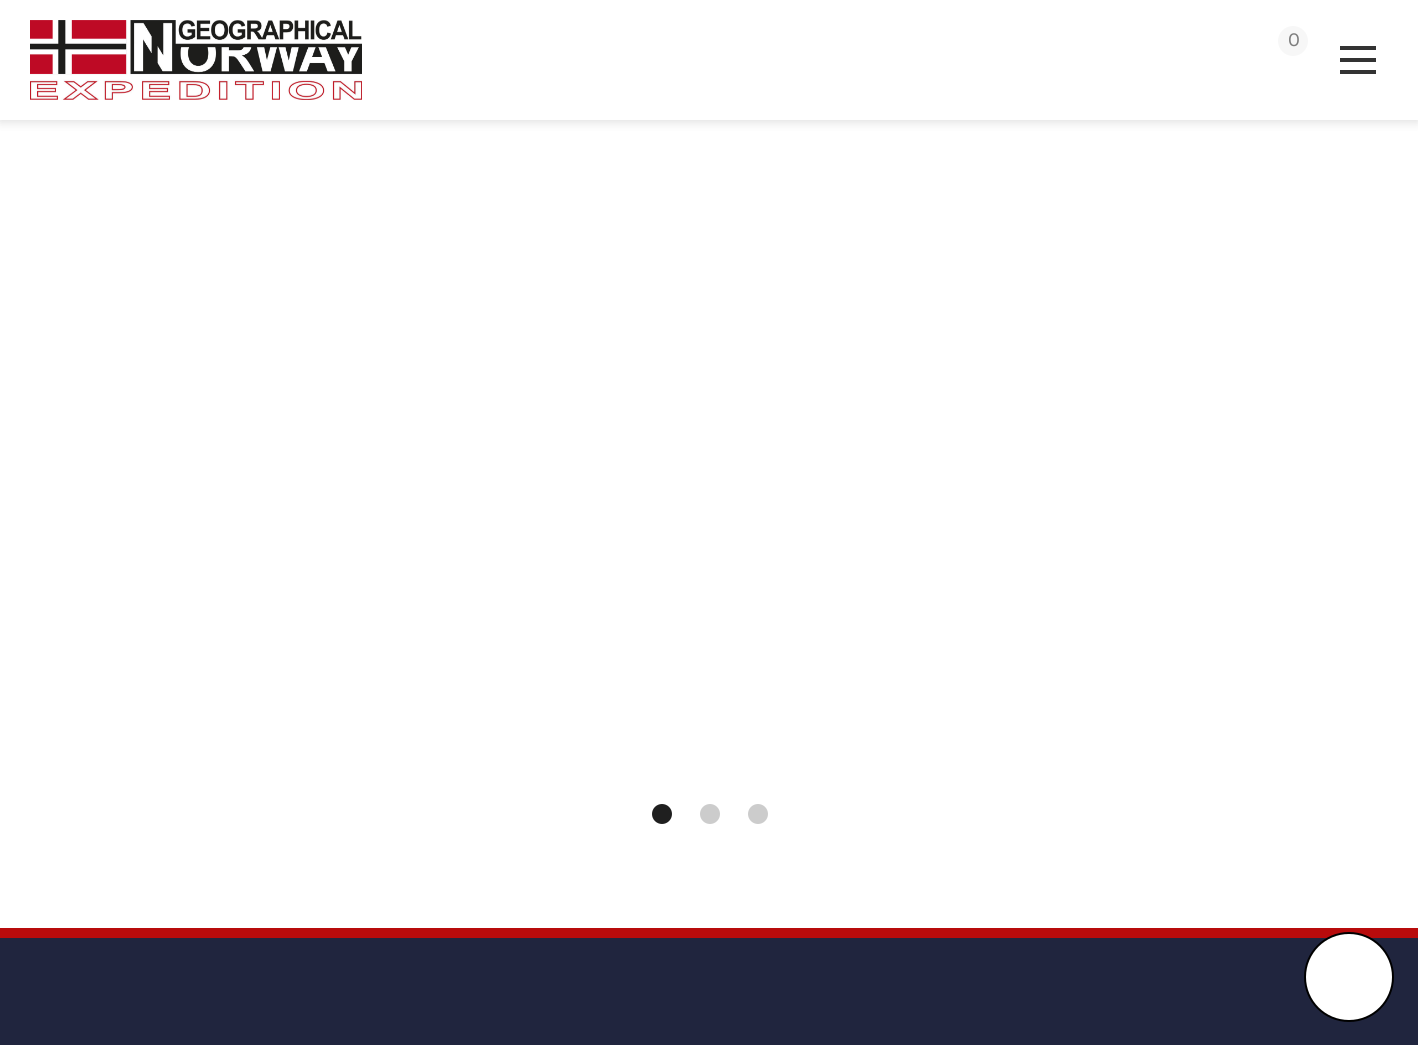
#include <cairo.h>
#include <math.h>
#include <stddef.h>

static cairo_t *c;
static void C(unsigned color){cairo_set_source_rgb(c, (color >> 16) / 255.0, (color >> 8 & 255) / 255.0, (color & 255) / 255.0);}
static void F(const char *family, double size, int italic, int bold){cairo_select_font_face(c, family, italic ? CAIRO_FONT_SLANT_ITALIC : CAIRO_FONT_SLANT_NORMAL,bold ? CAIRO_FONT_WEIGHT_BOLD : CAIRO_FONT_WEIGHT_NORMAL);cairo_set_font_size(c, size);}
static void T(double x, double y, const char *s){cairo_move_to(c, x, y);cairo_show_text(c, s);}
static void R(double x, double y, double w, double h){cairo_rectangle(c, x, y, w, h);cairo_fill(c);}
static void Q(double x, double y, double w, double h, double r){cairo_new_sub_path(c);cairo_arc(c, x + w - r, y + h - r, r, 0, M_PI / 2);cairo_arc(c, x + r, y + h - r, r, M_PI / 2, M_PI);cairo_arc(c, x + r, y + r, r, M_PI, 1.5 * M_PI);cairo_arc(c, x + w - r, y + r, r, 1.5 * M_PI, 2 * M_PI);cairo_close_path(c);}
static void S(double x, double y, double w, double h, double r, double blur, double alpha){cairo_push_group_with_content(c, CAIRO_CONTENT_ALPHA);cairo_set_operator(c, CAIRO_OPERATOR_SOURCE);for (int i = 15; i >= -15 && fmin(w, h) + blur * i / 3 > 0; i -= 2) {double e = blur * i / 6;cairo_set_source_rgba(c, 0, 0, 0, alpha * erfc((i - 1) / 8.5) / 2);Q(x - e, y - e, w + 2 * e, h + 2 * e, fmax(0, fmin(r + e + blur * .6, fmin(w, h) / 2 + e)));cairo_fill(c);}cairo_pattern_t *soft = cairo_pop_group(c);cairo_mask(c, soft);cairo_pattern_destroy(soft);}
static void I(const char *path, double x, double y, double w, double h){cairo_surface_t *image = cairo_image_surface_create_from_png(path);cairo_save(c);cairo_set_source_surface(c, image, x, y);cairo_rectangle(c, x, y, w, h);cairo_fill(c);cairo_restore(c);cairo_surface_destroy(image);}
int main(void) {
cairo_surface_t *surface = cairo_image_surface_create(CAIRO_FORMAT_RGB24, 1418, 1045);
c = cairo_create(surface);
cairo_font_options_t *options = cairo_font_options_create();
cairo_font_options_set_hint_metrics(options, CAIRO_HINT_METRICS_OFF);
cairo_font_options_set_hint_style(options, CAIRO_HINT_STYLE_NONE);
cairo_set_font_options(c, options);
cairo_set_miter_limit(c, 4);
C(0xffffff);
cairo_paint(c);
cairo_save(c);
cairo_rectangle(c,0,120,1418,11);
cairo_clip(c);
C(0xbebebe);
S(0,2,1418,120,0,5,.5);
cairo_restore(c);
I("1.png",30,20,332,80);
C(0xf7f7f7);
cairo_arc(c,1293,41,15,0,2 * M_PI);
cairo_fill(c);
F("Karla",20,0,0);
C(0x7e7e7e);
T(1288,46,"0");
C(0x333333);
R(1340,58,36,4);
R(1340,46,36,4);
R(1340,70,36,4);
C(0x1f1f1f);
cairo_new_path(c);
cairo_arc(c,662,814,10,0,2 * M_PI);
cairo_fill(c);
C(0xcccccc);
cairo_arc(c,710,814,10,0,2 * M_PI);
cairo_fill(c);
cairo_arc(c,758,814,10,0,2 * M_PI);
cairo_fill(c);
C(0x20253e);
R(0,938,1418,107);
C(0xb80b0c);
R(0,928,1418,10);
C(0xffffff);
cairo_arc(c,1349,977,44,0,2 * M_PI);
cairo_fill_preserve(c);
C(0x000000);
cairo_stroke(c);
cairo_surface_write_to_png(surface, "o.png");
cairo_font_options_destroy(options);
cairo_destroy(c);
cairo_surface_destroy(surface);
return 0;
}
